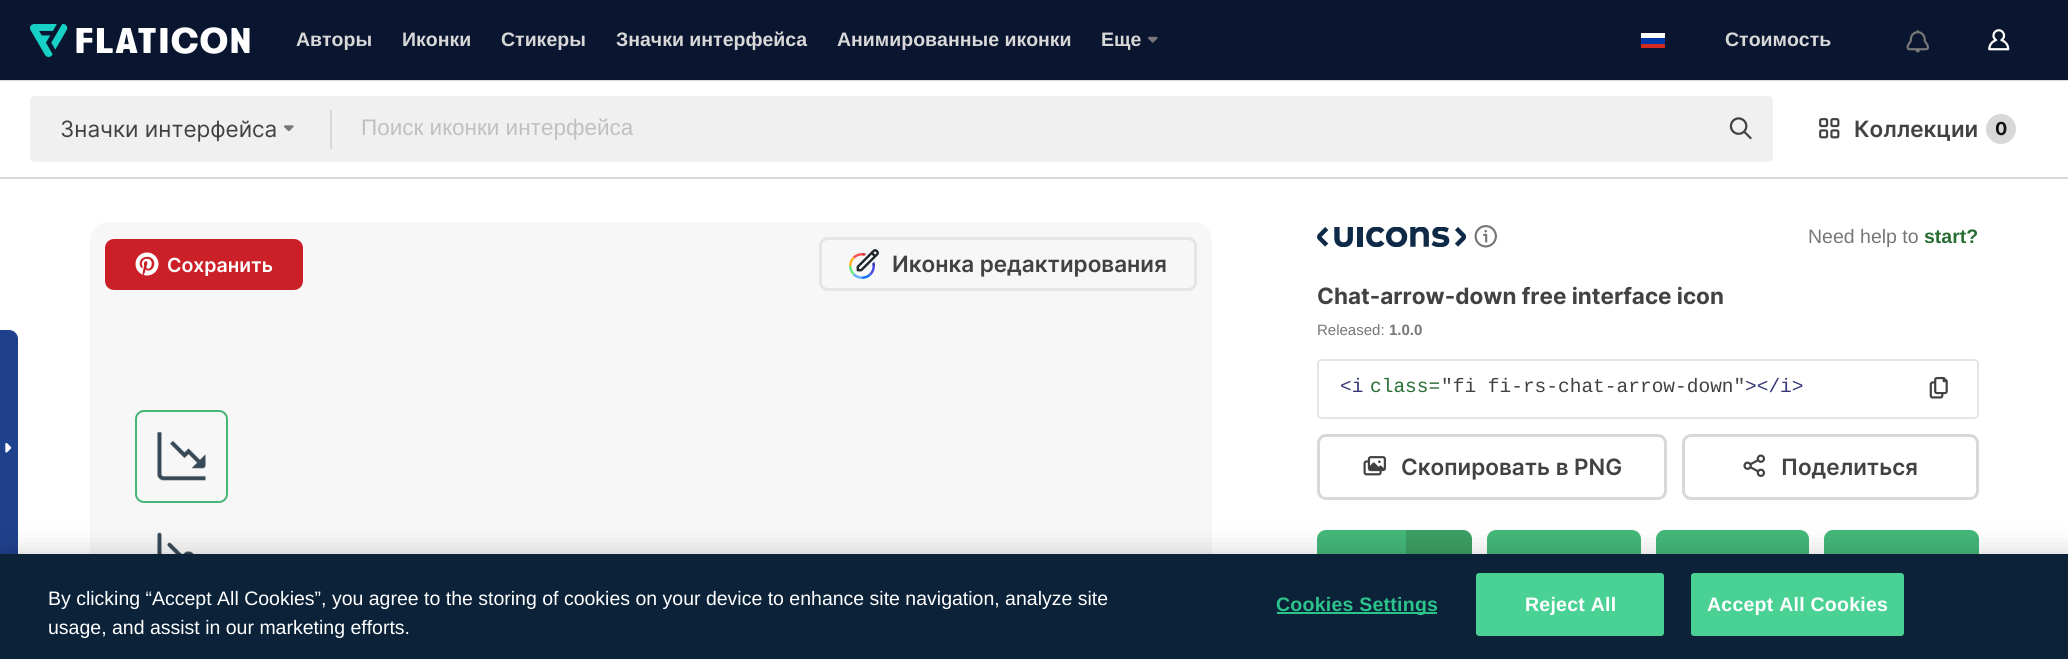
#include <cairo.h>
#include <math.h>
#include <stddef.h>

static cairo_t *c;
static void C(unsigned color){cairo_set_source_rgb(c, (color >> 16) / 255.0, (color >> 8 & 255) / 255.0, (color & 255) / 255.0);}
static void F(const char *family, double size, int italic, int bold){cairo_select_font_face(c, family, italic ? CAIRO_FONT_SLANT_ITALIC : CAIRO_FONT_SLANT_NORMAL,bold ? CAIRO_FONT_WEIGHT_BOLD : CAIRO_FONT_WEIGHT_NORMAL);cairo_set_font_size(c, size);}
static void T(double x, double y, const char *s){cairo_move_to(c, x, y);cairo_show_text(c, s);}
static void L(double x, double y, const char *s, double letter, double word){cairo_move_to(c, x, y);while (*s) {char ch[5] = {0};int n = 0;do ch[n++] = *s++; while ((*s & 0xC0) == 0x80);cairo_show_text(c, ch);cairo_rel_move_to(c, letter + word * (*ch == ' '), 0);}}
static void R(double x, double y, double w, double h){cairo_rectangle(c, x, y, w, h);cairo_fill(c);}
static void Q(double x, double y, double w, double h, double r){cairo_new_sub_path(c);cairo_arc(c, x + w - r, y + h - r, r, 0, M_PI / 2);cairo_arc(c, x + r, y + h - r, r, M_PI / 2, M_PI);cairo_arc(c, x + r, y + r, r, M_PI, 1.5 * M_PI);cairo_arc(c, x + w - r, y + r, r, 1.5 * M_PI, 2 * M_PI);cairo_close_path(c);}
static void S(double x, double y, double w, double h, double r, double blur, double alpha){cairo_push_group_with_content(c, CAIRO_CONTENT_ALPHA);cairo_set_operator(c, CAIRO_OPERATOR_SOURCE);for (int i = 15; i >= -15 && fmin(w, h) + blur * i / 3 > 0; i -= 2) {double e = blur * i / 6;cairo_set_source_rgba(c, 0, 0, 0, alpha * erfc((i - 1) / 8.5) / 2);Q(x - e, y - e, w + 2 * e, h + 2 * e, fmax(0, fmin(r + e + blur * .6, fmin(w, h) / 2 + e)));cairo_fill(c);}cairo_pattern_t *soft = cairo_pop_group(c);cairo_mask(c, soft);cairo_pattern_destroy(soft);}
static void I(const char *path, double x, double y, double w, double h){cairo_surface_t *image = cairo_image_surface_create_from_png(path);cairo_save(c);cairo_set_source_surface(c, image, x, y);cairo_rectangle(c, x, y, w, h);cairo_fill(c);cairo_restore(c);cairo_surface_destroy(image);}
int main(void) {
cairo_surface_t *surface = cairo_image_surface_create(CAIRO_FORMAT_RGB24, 2068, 659);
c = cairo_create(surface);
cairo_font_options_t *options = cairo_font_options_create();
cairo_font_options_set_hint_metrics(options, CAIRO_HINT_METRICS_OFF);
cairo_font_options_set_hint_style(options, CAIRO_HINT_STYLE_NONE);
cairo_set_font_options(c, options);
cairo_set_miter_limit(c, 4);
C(0xffffff);
cairo_paint(c);
C(0x1f408c);
cairo_new_path(c);
cairo_move_to(c,0,330);
cairo_line_to(c,9,330);
cairo_curve_to(c,14,330,18,334,18,339);
cairo_line_to(c,18,558);
cairo_curve_to(c,18,563,14,567,9,567);
cairo_line_to(c,0,567);
cairo_close_path(c);
cairo_fill(c);
I("1.png",5,442,7,11);
C(0x0a152f);
R(0,0,2068,80);
I("2.png",30,24,220,33);
F("Liberation Sans",19.5,0,1);
C(0xd8d8d8);
T(296,46,"Авторы");
T(402,46,"Иконки");
T(501,46,"Стикеры");
T(616,46,"Значки интерфейса");
T(837,46,"Анимированные иконки");
T(1101,46,"Еще");
I("3.png",1148,36,10,7);
C(0xffffff);
R(1641,33,24,5);
C(0xd52b1e);
R(1641,44,24,4);
C(0x0039a6);
R(1641,38,24,6);
C(0xd8d8d8);
T(1725,46,"Стоимость");
I("4.png",1906,30,23,23);
I("5.png",1988,29,22,22);
cairo_rectangle(c,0,81,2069,97);
cairo_stroke(c);
C(0xffffff);
R(0,81,2068,96);
C(0xf0f0f0);
Q(30,96,1743,66,5);
cairo_fill(c);
F("Inter",22.5,0,0);
C(0x424242);
T(60,137,"Значки интерфейса");
I("6.png",284,125,10,7);
C(0xd8d8d8);
R(330,110,2,39);
F("Liberation Sans",22.5,0,0);
C(0xc0c0c0);
T(361,135,"Поиск иконки интерфейса");
I("7.png",1729,117,23,23);
I("8.png",1819,118,21,21);
F("Inter SemiBold",22.5,0,0);
C(0x424242);
T(1854,137,"Коллекции");
C(0xd8d8d8);
cairo_new_path(c);
cairo_arc(c,2001,129,15,0,2 * M_PI);
cairo_fill(c);
F("Inter",18,0,1);
C(0x121212);
T(1995,135,"0");
C(0xf7f7f7);
Q(90,222,1122,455,18);
cairo_fill(c);
C(0xcb2027);
Q(105,239,198,51,9);
cairo_fill(c);
I("9.png",135,252,24,24);
F("Inter SemiBold",19.5,0,0);
C(0xffffff);
T(167,272,"Сохранить");
Q(820.5,238.5,375,51,7.5);
C(0xe5e5e5);
cairo_set_line_width(c,3);
cairo_stroke(c);
I("10.png",849,249,30,30);
F("Inter SemiBold",22.5,0,0);
C(0x424242);
T(892,272,"Иконка редактирования");
Q(136,411,91,91,8);
C(0x44b678);
cairo_set_line_width(c,2);
cairo_stroke(c);
I("11.png",157,432,49,49);
I("12.png",157,532,37,22);
I("13.png",1317,227,149,20);
I("14.png",1474,225,23,23);
F("Liberation Sans",19.5,0,0);
C(0x777777);
T(1808,243,"Need help to");
F("Liberation Sans",19.5,0,1);
C(0x286d34);
T(1924,243,"start?");
F("Inter",22.5,0,1);
C(0x424242);
T(1317,304,"Chat-arrow-down free interface icon");
F("Liberation Sans",15,0,0);
C(0x777777);
T(1317,335,"Released:");
F("Liberation Sans",15,0,1);
T(1389,335,"1.0.0");
I("15.png",1929,376,19,23);
Q(1318,360,660,58,4);
C(0xe5e5e5);
cairo_stroke(c);
F("Liberation Mono",19.5,0,0);
C(0x353777);
T(1340,392,"<i");
C(0x286d34);
T(1370,392,"class=");
C(0x424242);
T(1441,392,"\"fi fi-rs-chat-arrow-down\"");
C(0x353777);
T(1745,392,"></i>");
Q(1318.5,435.5,347,63,7.5);
C(0xd8d8d8);
cairo_set_line_width(c,3);
cairo_stroke(c);
I("16.png",1363,456,23,20);
F("Inter SemiBold",22.5,0,0);
C(0x424242);
T(1401,475,"Скопировать в PNG");
Q(1683.5,435.5,294,63,7.5);
C(0xd8d8d8);
cairo_stroke(c);
I("17.png",1743,454,23,23);
C(0x424242);
T(1781,475,"Поделиться");
C(0x44b678);
cairo_new_path(c);
cairo_move_to(c,1326,530);
cairo_line_to(c,1406,530);
cairo_line_to(c,1406,596);
cairo_line_to(c,1326,596);
cairo_curve_to(c,1321,596,1317,592,1317,587);
cairo_line_to(c,1317,539);
cairo_curve_to(c,1317,534,1321,530,1326,530);
cairo_close_path(c);
cairo_fill(c);
C(0x3b9e62);
cairo_new_path(c);
cairo_move_to(c,1406,530);
cairo_line_to(c,1463,530);
cairo_curve_to(c,1468,530,1472,534,1472,539);
cairo_line_to(c,1472,587);
cairo_curve_to(c,1472,592,1468,596,1463,596);
cairo_line_to(c,1406,596);
cairo_close_path(c);
cairo_fill(c);
C(0x44b678);
Q(1487,530,154,66,9);
cairo_fill(c);
Q(1656,530,153,66,9);
cairo_fill(c);
Q(1824,530,155,66,9);
cairo_fill(c);
C(0x000000);
S(0,554,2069,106,0,13.5,.2);
C(0x0b2239);
R(0,554,2068,105);
F("Liberation Sans",19.5,0,0);
C(0xffffff);
T(48,605,"By clicking “Accept All Cookies”, you agree to the storing of cookies on your device to enhance site navigation, analyze site");
T(48,634,"usage, and assist in our marketing efforts.");
C(0x2bc48a);
R(1277,612,160,2);
F("Liberation Sans",19.5,0,1);
L(1276,611,"Cookies Settings",.25,0);
C(0x4ad295);
Q(1477,574,186,61,2);
cairo_fill_preserve(c);
cairo_set_line_width(c,2);
cairo_stroke(c);
C(0xffffff);
L(1525,611,"Reject All",.25,0);
C(0x4ad295);
Q(1692,574,211,61,2);
cairo_fill_preserve(c);
cairo_stroke(c);
C(0xffffff);
L(1707,611,"Accept All Cookies",.25,0);
cairo_surface_write_to_png(surface, "o.png");
cairo_font_options_destroy(options);
cairo_destroy(c);
cairo_surface_destroy(surface);
return 0;
}
